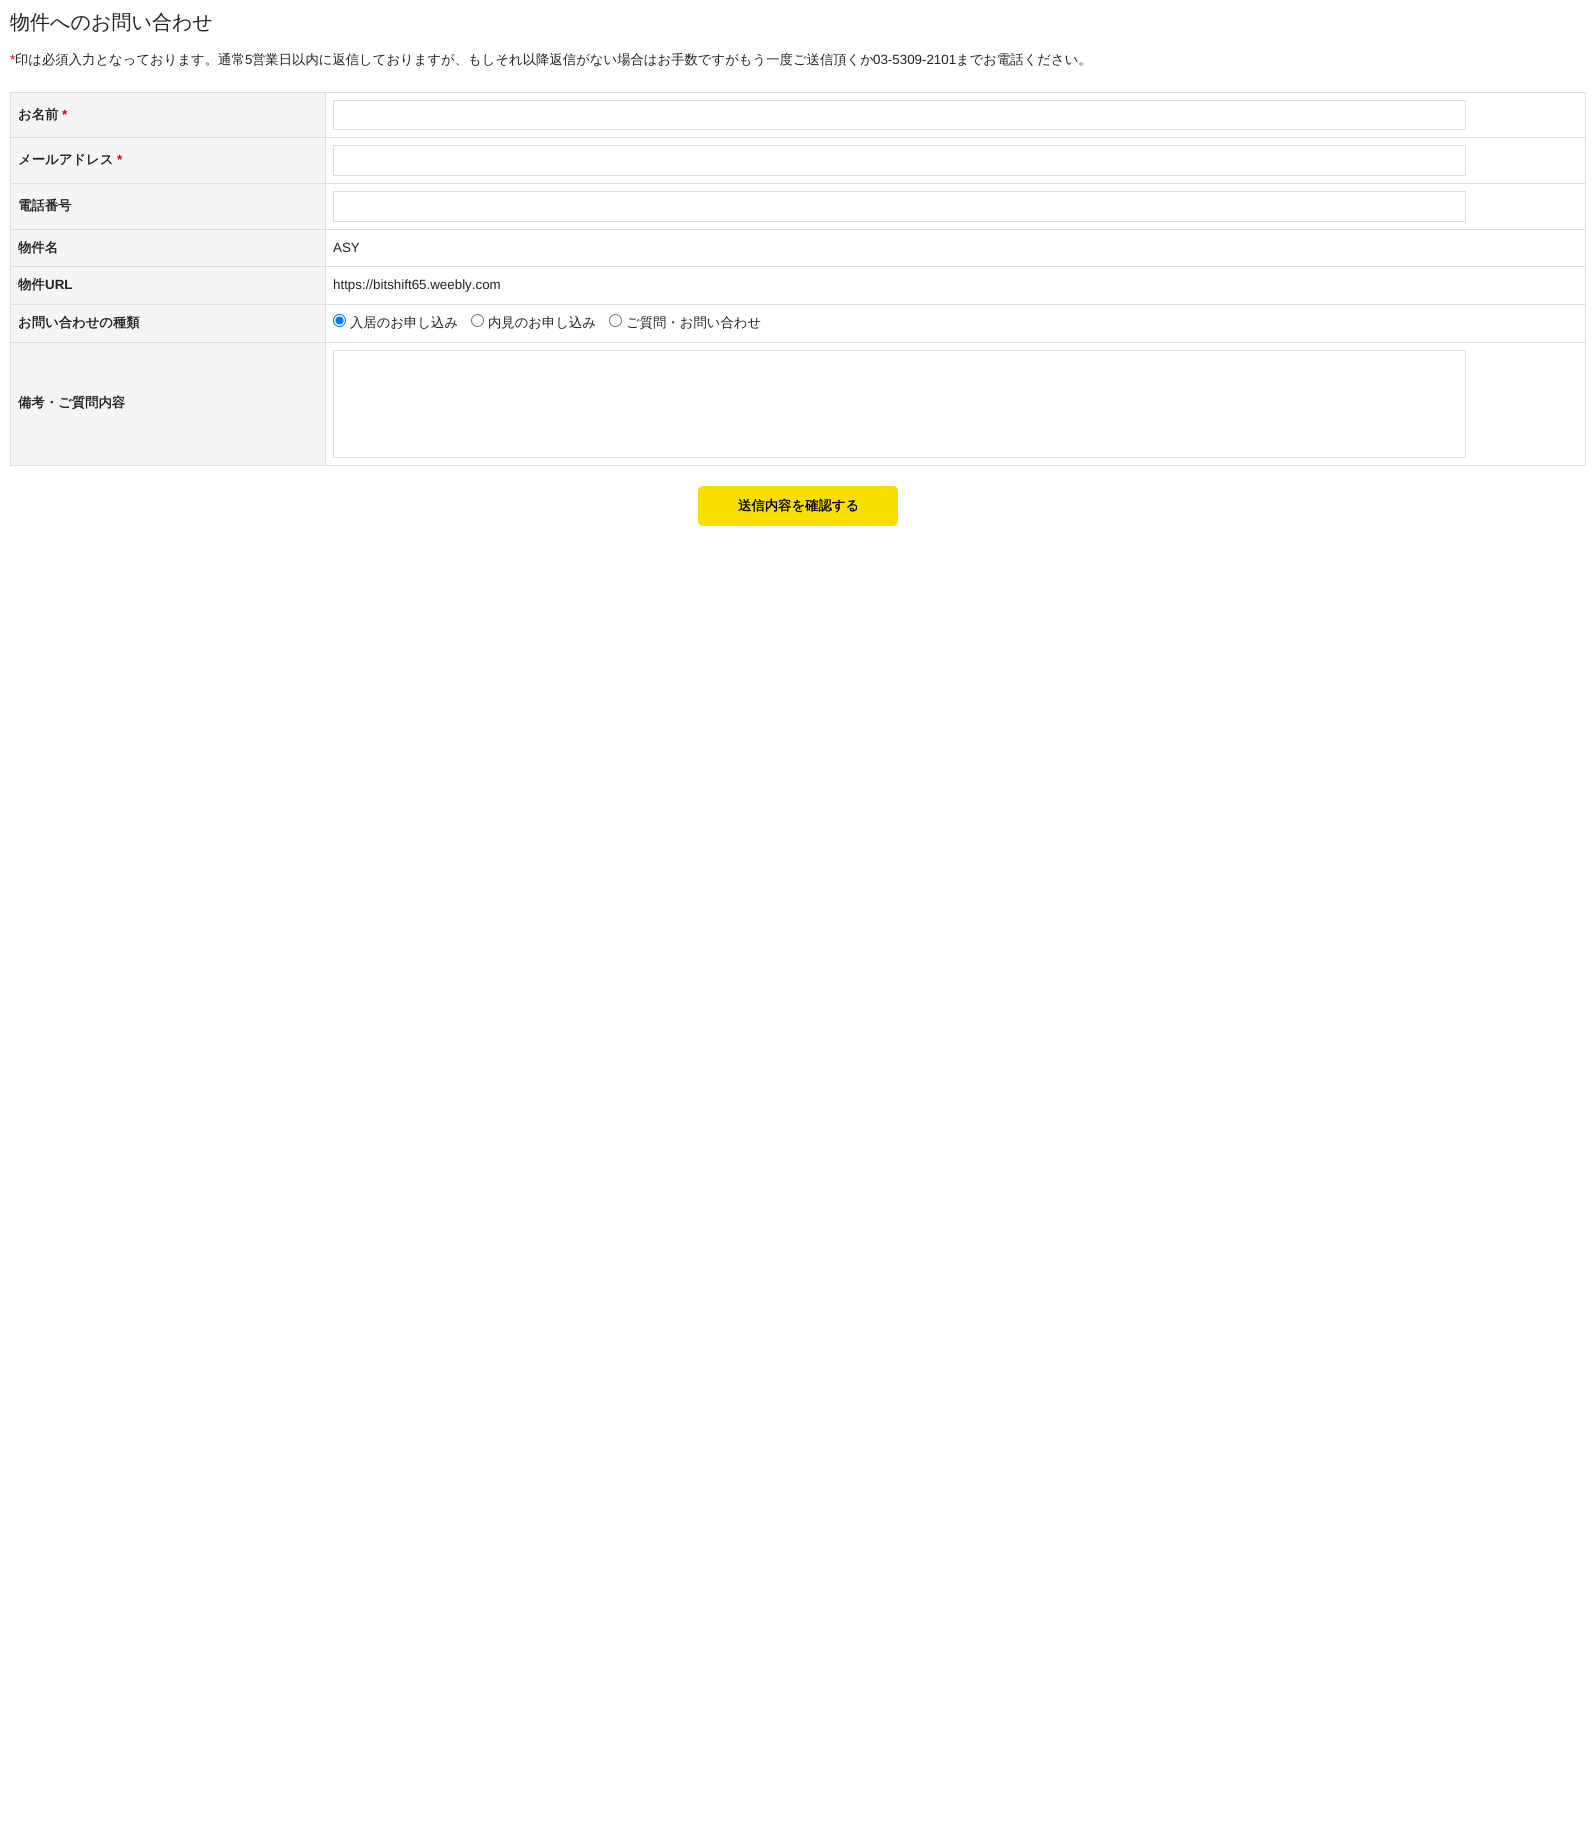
#include <cairo.h>
#include <math.h>
#include <stddef.h>

static cairo_t *c;
static void C(unsigned color){cairo_set_source_rgb(c, (color >> 16) / 255.0, (color >> 8 & 255) / 255.0, (color & 255) / 255.0);}
static void F(const char *family, double size, int italic, int bold){cairo_select_font_face(c, family, italic ? CAIRO_FONT_SLANT_ITALIC : CAIRO_FONT_SLANT_NORMAL,bold ? CAIRO_FONT_WEIGHT_BOLD : CAIRO_FONT_WEIGHT_NORMAL);cairo_set_font_size(c, size);}
static void T(double x, double y, const char *s){cairo_move_to(c, x, y);cairo_show_text(c, s);}
static void R(double x, double y, double w, double h){cairo_rectangle(c, x, y, w, h);cairo_fill(c);}
static void Q(double x, double y, double w, double h, double r){cairo_new_sub_path(c);cairo_arc(c, x + w - r, y + h - r, r, 0, M_PI / 2);cairo_arc(c, x + r, y + h - r, r, M_PI / 2, M_PI);cairo_arc(c, x + r, y + r, r, M_PI, 1.5 * M_PI);cairo_arc(c, x + w - r, y + r, r, 1.5 * M_PI, 2 * M_PI);cairo_close_path(c);}
int main(void) {
cairo_surface_t *surface = cairo_image_surface_create(CAIRO_FORMAT_RGB24, 1596, 1839);
c = cairo_create(surface);
cairo_font_options_t *options = cairo_font_options_create();
cairo_font_options_set_hint_metrics(options, CAIRO_HINT_METRICS_OFF);
cairo_font_options_set_hint_style(options, CAIRO_HINT_STYLE_NONE);
cairo_set_font_options(c, options);
cairo_set_miter_limit(c, 4);
C(0xffffff);
cairo_paint(c);
F("WenQuanYi Zen Hei Medium",20,0,0);
C(0x222222);
T(10,29,"物件へのお問い合わせ");
F("Liberation Sans",13.35,0,0);
C(0xdd0000);
T(10,64,"*");
F("WenQuanYi Zen Hei Medium",13.35,0,0);
C(0x222222);
T(15,64,"印は必須入力となっております。通常");
F("Liberation Sans",13.35,0,0);
T(245,64,"5");
F("WenQuanYi Zen Hei Medium",13.35,0,0);
T(252,64,"営業日以内に返信しておりますが、もしそれ以降返信がない場合はお手数ですがもう一度ご送信頂くか");
F("Liberation Sans",13.35,0,0);
T(873,64,"03-5309-2101");
F("WenQuanYi Zen Hei Medium",13.35,0,0);
T(956,64,"までお電話ください。");
C(0xf5f5f5);
R(11,93,314,44);
C(0xdddddd);
R(325,92,1261,1);
R(325,137,1261,1);
R(325,183,1261,1);
R(325,229,1261,1);
R(325,266,1261,1);
R(325,304,1261,1);
R(325,342,1261,1);
R(1585,342,1,124);
R(325,465,1261,1);
R(325,342,1,124);
R(10,342,316,1);
R(325,304,1,39);
R(10,304,316,1);
R(325,266,1,39);
R(10,266,316,1);
R(325,229,1,38);
R(10,229,316,1);
R(325,183,1,47);
R(10,183,316,1);
R(325,137,1,47);
R(10,137,316,1);
R(325,92,1,46);
R(10,92,316,1);
R(10,465,316,1);
R(10,342,1,124);
R(10,304,1,39);
R(10,266,1,39);
R(10,229,1,38);
R(10,183,1,47);
R(10,137,1,47);
R(10,92,1,46);
F("WenQuanYi Zen Hei",13.35,0,1);
C(0x222222);
T(18,119,"お名前");
F("Liberation Sans",13.35,0,1);
C(0xdd0000);
T(62,119,"*");
C(0xdddddd);
R(1585,304,1,39);
R(1585,266,1,39);
R(1585,229,1,38);
R(1585,183,1,47);
R(1585,137,1,47);
R(1585,92,1,46);
cairo_rectangle(c,333.5,100.5,1132,29);
cairo_set_line_width(c,1);
cairo_stroke(c);
C(0xf5f5f5);
R(11,138,314,45);
F("WenQuanYi Zen Hei",13.35,0,1);
C(0x222222);
T(18,164,"メールアドレス");
F("Liberation Sans",13.35,0,1);
C(0xdd0000);
T(117,164,"*");
cairo_rectangle(c,333.5,145.5,1132,30);
C(0xdddddd);
cairo_stroke(c);
C(0xf5f5f5);
R(11,184,314,45);
F("WenQuanYi Zen Hei",13.35,0,1);
C(0x222222);
T(18,210,"電話番号");
cairo_rectangle(c,333.5,191.5,1132,30);
C(0xdddddd);
cairo_stroke(c);
C(0xf5f5f5);
R(11,230,314,36);
C(0x222222);
T(18,252,"物件名");
F("Liberation Sans",13.35,0,0);
T(333,252,"ASY");
C(0xf5f5f5);
R(11,267,314,37);
F("WenQuanYi Zen Hei",13.35,0,1);
C(0x222222);
T(18,289,"物件");
F("Liberation Sans",13.35,0,1);
T(45,289,"URL");
F("Liberation Sans",13.35,0,0);
T(333,289,"https://bitshift65.weebly.com");
C(0xf5f5f5);
R(11,305,314,37);
F("WenQuanYi Zen Hei",13.35,0,1);
C(0x222222);
T(18,327,"お問い合わせの種類");
cairo_new_path(c);
cairo_arc(c,339.5,320.5,6,0,2 * M_PI);
C(0x0075ff);
cairo_stroke(c);
cairo_arc(c,339.5,320.5,4,0,2 * M_PI);
cairo_fill(c);
F("WenQuanYi Zen Hei Medium",13.35,0,0);
C(0x222222);
T(350,327,"入居のお申し込み");
cairo_new_path(c);
cairo_arc(c,477.5,320.5,6,0,2 * M_PI);
C(0x767676);
cairo_stroke(c);
C(0x222222);
T(488,327,"内見のお申し込み");
cairo_new_path(c);
cairo_arc(c,615.5,320.5,6,0,2 * M_PI);
C(0x767676);
cairo_stroke(c);
C(0x222222);
T(626,327,"ご質問・お問い合わせ");
C(0xf5f5f5);
R(11,343,314,122);
F("WenQuanYi Zen Hei",13.35,0,1);
C(0x222222);
T(18,407,"備考・ご質問内容");
cairo_rectangle(c,333.5,350.5,1132,107);
C(0xdddddd);
cairo_stroke(c);
C(0xf9df00);
Q(698,486,200,40,5);
cairo_fill(c);
C(0x000000);
T(738,510,"送信内容を確認する");
cairo_surface_write_to_png(surface, "o.png");
cairo_font_options_destroy(options);
cairo_destroy(c);
cairo_surface_destroy(surface);
return 0;
}
